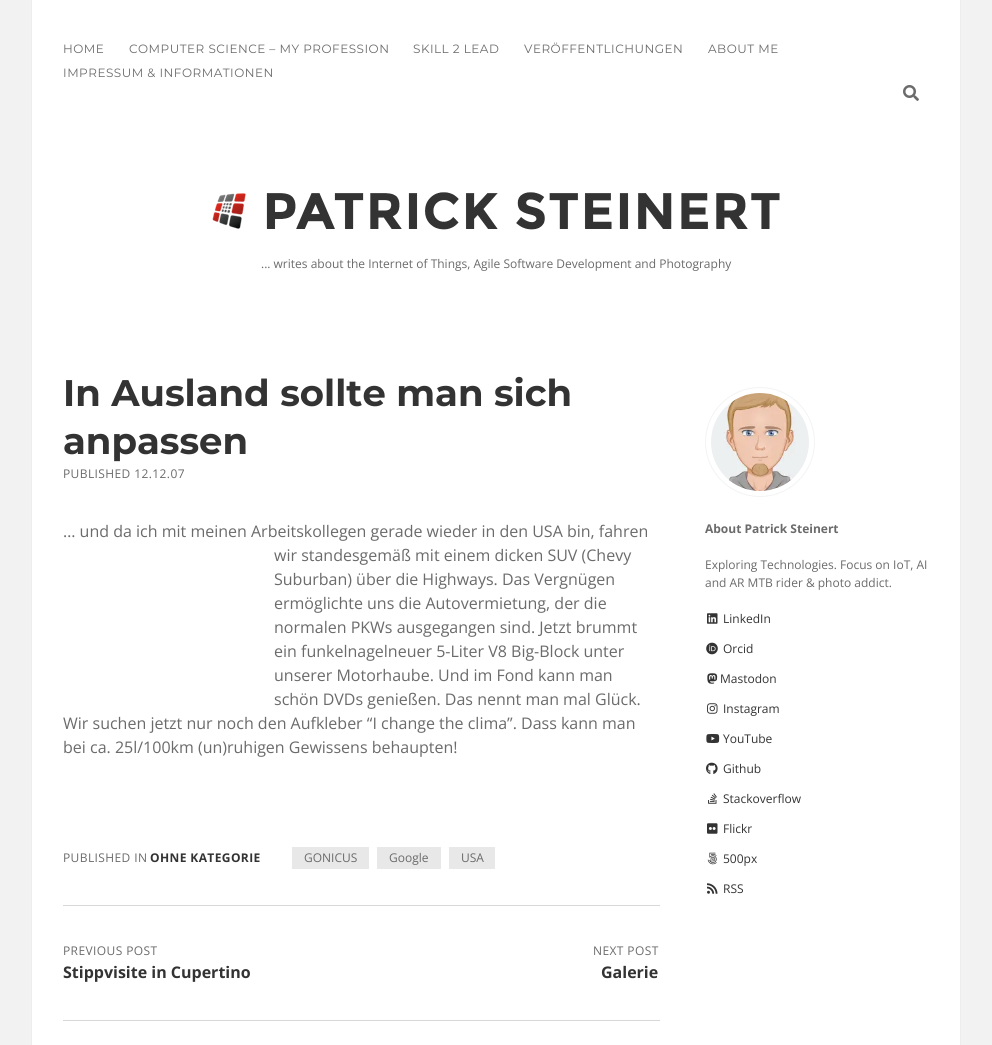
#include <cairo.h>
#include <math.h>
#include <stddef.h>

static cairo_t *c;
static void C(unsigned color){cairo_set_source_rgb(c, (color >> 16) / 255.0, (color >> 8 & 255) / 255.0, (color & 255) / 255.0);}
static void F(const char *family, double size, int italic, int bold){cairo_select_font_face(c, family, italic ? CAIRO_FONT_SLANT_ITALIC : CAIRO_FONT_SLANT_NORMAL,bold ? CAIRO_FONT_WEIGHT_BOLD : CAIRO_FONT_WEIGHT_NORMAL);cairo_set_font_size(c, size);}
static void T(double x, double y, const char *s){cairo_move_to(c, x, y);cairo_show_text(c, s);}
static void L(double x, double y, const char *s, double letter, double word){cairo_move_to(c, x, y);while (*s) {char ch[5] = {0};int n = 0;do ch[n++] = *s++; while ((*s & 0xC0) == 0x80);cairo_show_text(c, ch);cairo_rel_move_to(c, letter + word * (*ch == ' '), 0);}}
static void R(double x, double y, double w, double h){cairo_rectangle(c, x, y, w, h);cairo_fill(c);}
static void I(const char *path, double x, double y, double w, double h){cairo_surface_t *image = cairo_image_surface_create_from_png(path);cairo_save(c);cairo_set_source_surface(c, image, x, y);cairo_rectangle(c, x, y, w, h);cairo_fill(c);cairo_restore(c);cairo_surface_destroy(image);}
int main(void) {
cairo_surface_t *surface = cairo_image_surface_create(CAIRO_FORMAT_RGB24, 992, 1045);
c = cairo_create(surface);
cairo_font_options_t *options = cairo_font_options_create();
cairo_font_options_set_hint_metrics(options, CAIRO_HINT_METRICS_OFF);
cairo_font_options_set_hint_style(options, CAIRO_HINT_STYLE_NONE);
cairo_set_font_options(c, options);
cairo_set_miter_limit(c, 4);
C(0xf2f2f2);
cairo_paint(c);
C(0xffffff);
R(32,0,928,1045);
C(0xededed);
R(960,0,1,1045);
R(31,0,1,1045);
F("Montserrat",12,0,0);
C(0x6b6b6b);
L(63,53,"HOME",.5,0);
L(129,53,"COMPUTER SCIENCE – MY PROFESSION",.5,0);
L(413,53,"SKILL 2 LEAD",.5,0);
L(524,53,"VERÖFFENTLICHUNGEN",.5,0);
L(708,53,"ABOUT ME",.5,0);
L(63,77,"IMPRESSUM & INFORMATIONEN",.5,0);
I("1.png",903,85,16,16);
I("2.png",212,192,568,38);
F("Open Sans",12,0,0);
T(261,268,"... writes about the Internet of Things, Agile Software Development and Photography");
F("Montserrat",37,0,1);
C(0x333333);
T(63,406,"In Ausland sollte man sich");
T(63,454,"anpassen");
F("Open Sans",12,0,0);
C(0x6b6b6b);
L(63,478,"PUBLISHED 12.12.07",.4,0);
F("Open Sans",16,0,0);
T(63,537,"… und da ich mit meinen Arbeitskollegen gerade wieder in den USA bin, fahren");
T(274,561,"wir standesgemäß mit einem dicken SUV (Chevy");
T(274,585,"Suburban) über die Highways. Das Vergnügen");
T(274,609,"ermöglichte uns die Autovermietung, der die");
T(274,633,"normalen PKWs ausgegangen sind. Jetzt brummt");
T(274,657,"ein funkelnagelneuer 5-Liter V8 Big-Block unter");
T(274,681,"unserer Motorhaube. Und im Fond kann man");
T(274,705,"schön DVDs genießen. Das nennt man mal Glück.");
T(63,729,"Wir suchen jetzt nur noch den Aufkleber “I change the clima”. Dass kann man");
T(63,753,"bei ca. 25l/100km (un)ruhigen Gewissens behaupten!");
F("Open Sans",12,0,0);
L(63,862,"PUBLISHED IN",.4,0);
F("Open Sans",12,0,1);
C(0x333333);
L(150,862,"OHNE KATEGORIE",.4,0);
C(0xe8e8e8);
R(292,847,77,22);
F("Open Sans",12,0,0);
C(0x6b6b6b);
T(304,862,"GONICUS");
C(0xe8e8e8);
R(377,847,64,22);
C(0x6b6b6b);
T(389,862,"Google");
C(0xe8e8e8);
R(449,847,46,22);
C(0x6b6b6b);
T(461,862,"USA");
C(0xd8d8d8);
R(63,905,597,1);
R(63,1020,597,1);
C(0x6b6b6b);
L(63,955,"PREVIOUS POST",.4,0);
F("Open Sans",16,0,1);
C(0x333333);
T(63,978,"Stippvisite in Cupertino");
F("Open Sans",12,0,0);
C(0x6b6b6b);
L(593,955,"NEXT POST",.4,0);
F("Open Sans",16,0,1);
C(0x333333);
T(601,978,"Galerie");
cairo_new_path(c);
cairo_arc(c,760,442,54.5,0,2 * M_PI);
C(0xf2f3f3);
cairo_set_line_width(c,1);
cairo_stroke(c);
I("3.png",711,393,98,98);
F("Open Sans",12,0,1);
C(0x6b6b6b);
T(705,533,"About Patrick Steinert");
F("Open Sans",12,0,0);
T(705,569,"Exploring Technologies. Focus on IoT, AI");
T(705,587,"and AR MTB rider & photo addict.");
I("4.png",707,613,11,11);
C(0x333333);
T(723,623,"LinkedIn");
I("5.png",706,642,12,13);
T(723,653,"Orcid");
I("6.png",707,673,11,11);
T(720,683,"Mastodon");
I("7.png",707,703,11,11);
T(723,713,"Instagram");
I("8.png",706,734,14,9);
T(723,743,"YouTube");
I("9.png",706,762,12,12);
T(723,773,"Github");
I("10.png",708,793,9,11);
T(723,803,"Stackoverflow");
I("11.png",707,823,11,11);
T(723,833,"Flickr");
I("12.png",707,852,10,13);
T(723,863,"500px");
I("13.png",707,883,11,11);
T(723,893,"RSS");
cairo_surface_write_to_png(surface, "o.png");
cairo_font_options_destroy(options);
cairo_destroy(c);
cairo_surface_destroy(surface);
return 0;
}
